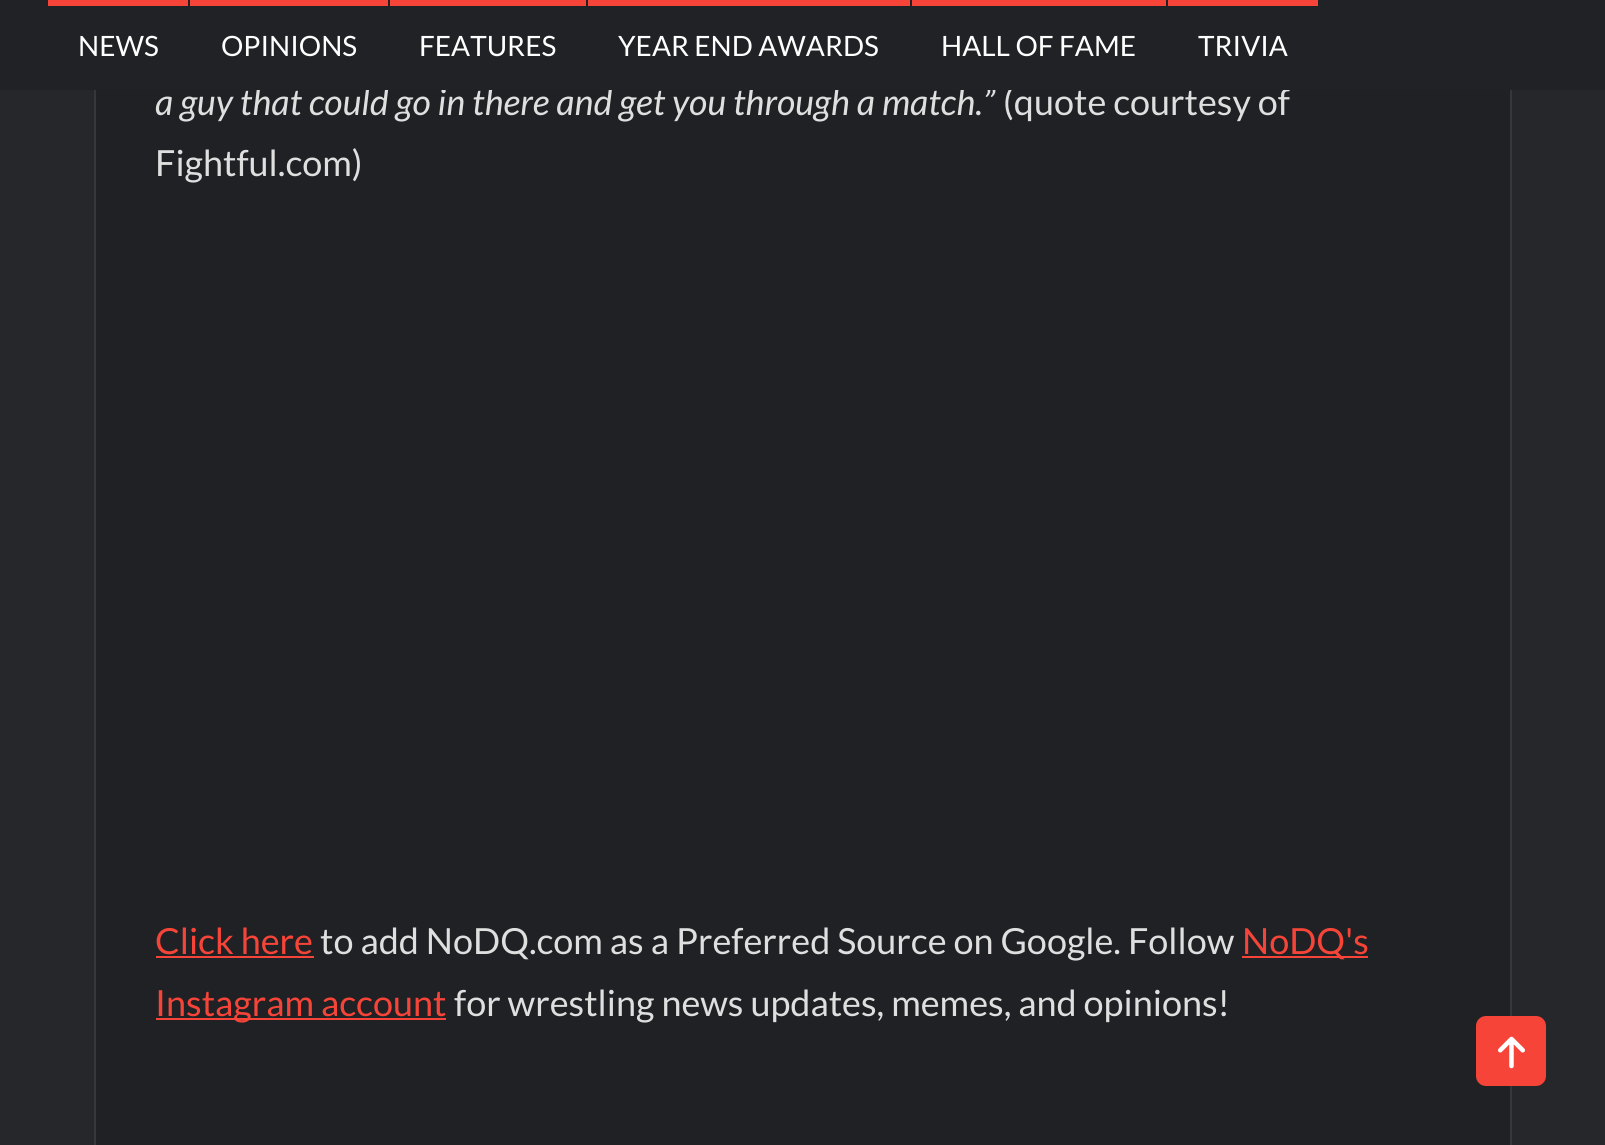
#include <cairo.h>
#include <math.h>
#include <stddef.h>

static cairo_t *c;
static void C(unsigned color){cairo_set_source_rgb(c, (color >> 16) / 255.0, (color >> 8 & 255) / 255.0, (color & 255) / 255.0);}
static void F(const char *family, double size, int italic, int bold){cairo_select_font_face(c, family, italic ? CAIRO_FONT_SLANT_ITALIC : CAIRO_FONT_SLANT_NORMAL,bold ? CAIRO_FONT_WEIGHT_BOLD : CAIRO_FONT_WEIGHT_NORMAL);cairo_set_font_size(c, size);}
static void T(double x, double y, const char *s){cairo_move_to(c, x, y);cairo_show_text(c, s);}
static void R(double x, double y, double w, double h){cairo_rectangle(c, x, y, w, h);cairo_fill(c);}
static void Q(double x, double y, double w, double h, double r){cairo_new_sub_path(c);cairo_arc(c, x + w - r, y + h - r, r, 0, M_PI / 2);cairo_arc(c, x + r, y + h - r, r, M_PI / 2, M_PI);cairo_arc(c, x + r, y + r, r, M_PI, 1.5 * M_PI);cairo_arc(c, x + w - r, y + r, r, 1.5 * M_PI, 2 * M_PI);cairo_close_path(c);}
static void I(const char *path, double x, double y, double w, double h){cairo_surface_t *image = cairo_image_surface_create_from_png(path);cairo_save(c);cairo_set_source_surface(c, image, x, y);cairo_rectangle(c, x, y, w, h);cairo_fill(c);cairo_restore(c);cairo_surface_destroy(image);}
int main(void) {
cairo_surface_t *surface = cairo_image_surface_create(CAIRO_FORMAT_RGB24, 1605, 1145);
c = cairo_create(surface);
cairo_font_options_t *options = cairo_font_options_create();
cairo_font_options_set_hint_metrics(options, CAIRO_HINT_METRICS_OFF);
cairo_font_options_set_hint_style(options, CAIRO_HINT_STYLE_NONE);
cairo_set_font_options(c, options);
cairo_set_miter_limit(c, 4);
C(0x25272b);
cairo_paint(c);
C(0x202125);
R(96,90,1414,1055);
cairo_rectangle(c,95,-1,1416,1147);
C(0x36373b);
cairo_stroke(c);
F("Lato",36,1,0);
C(0xdfdfdf);
T(155,115,"a guy that could go in there and get you through a match.”");
F("Lato",36,0,0);
T(1003,115,"(quote courtesy of");
C(0x212226);
R(0,0,1605,90);
C(0xf64538);
R(48,0,140,6);
F("Lato",28,0,0);
C(0xffffff);
T(78,56,"NEWS");
C(0xf64538);
R(190,0,198,6);
C(0xffffff);
T(221,56,"OPINIONS");
C(0xf64538);
R(390,0,196,6);
C(0xffffff);
T(419,56,"FEATURES");
C(0xf64538);
R(588,0,322,6);
C(0xffffff);
T(618,56,"YEAR END AWARDS");
C(0xf64538);
R(912,0,254,6);
C(0xffffff);
T(941,56,"HALL OF FAME");
C(0xf64538);
R(1168,0,150,6);
C(0xffffff);
T(1198,56,"TRIVIA");
F("Lato",36,0,0);
C(0xdfdfdf);
T(155,176,"Fightful.com)");
C(0xf64538);
T(155,954,"Click here");
R(156,956,158,2);
C(0xdfdfdf);
T(320,954,"to add NoDQ.com as a Preferred Source on Google. Follow");
C(0xf64538);
R(1242,956,126,2);
T(1242,954,"NoDQ's");
R(156,1018,290,2);
T(155,1016,"Instagram account");
C(0xdfdfdf);
T(454,1016,"for wrestling news updates, memes, and opinions!");
C(0xf64538);
Q(1476,1016,70,70,10);
cairo_fill(c);
I("1.png",1498,1036,27,33);
cairo_surface_write_to_png(surface, "o.png");
cairo_font_options_destroy(options);
cairo_destroy(c);
cairo_surface_destroy(surface);
return 0;
}
